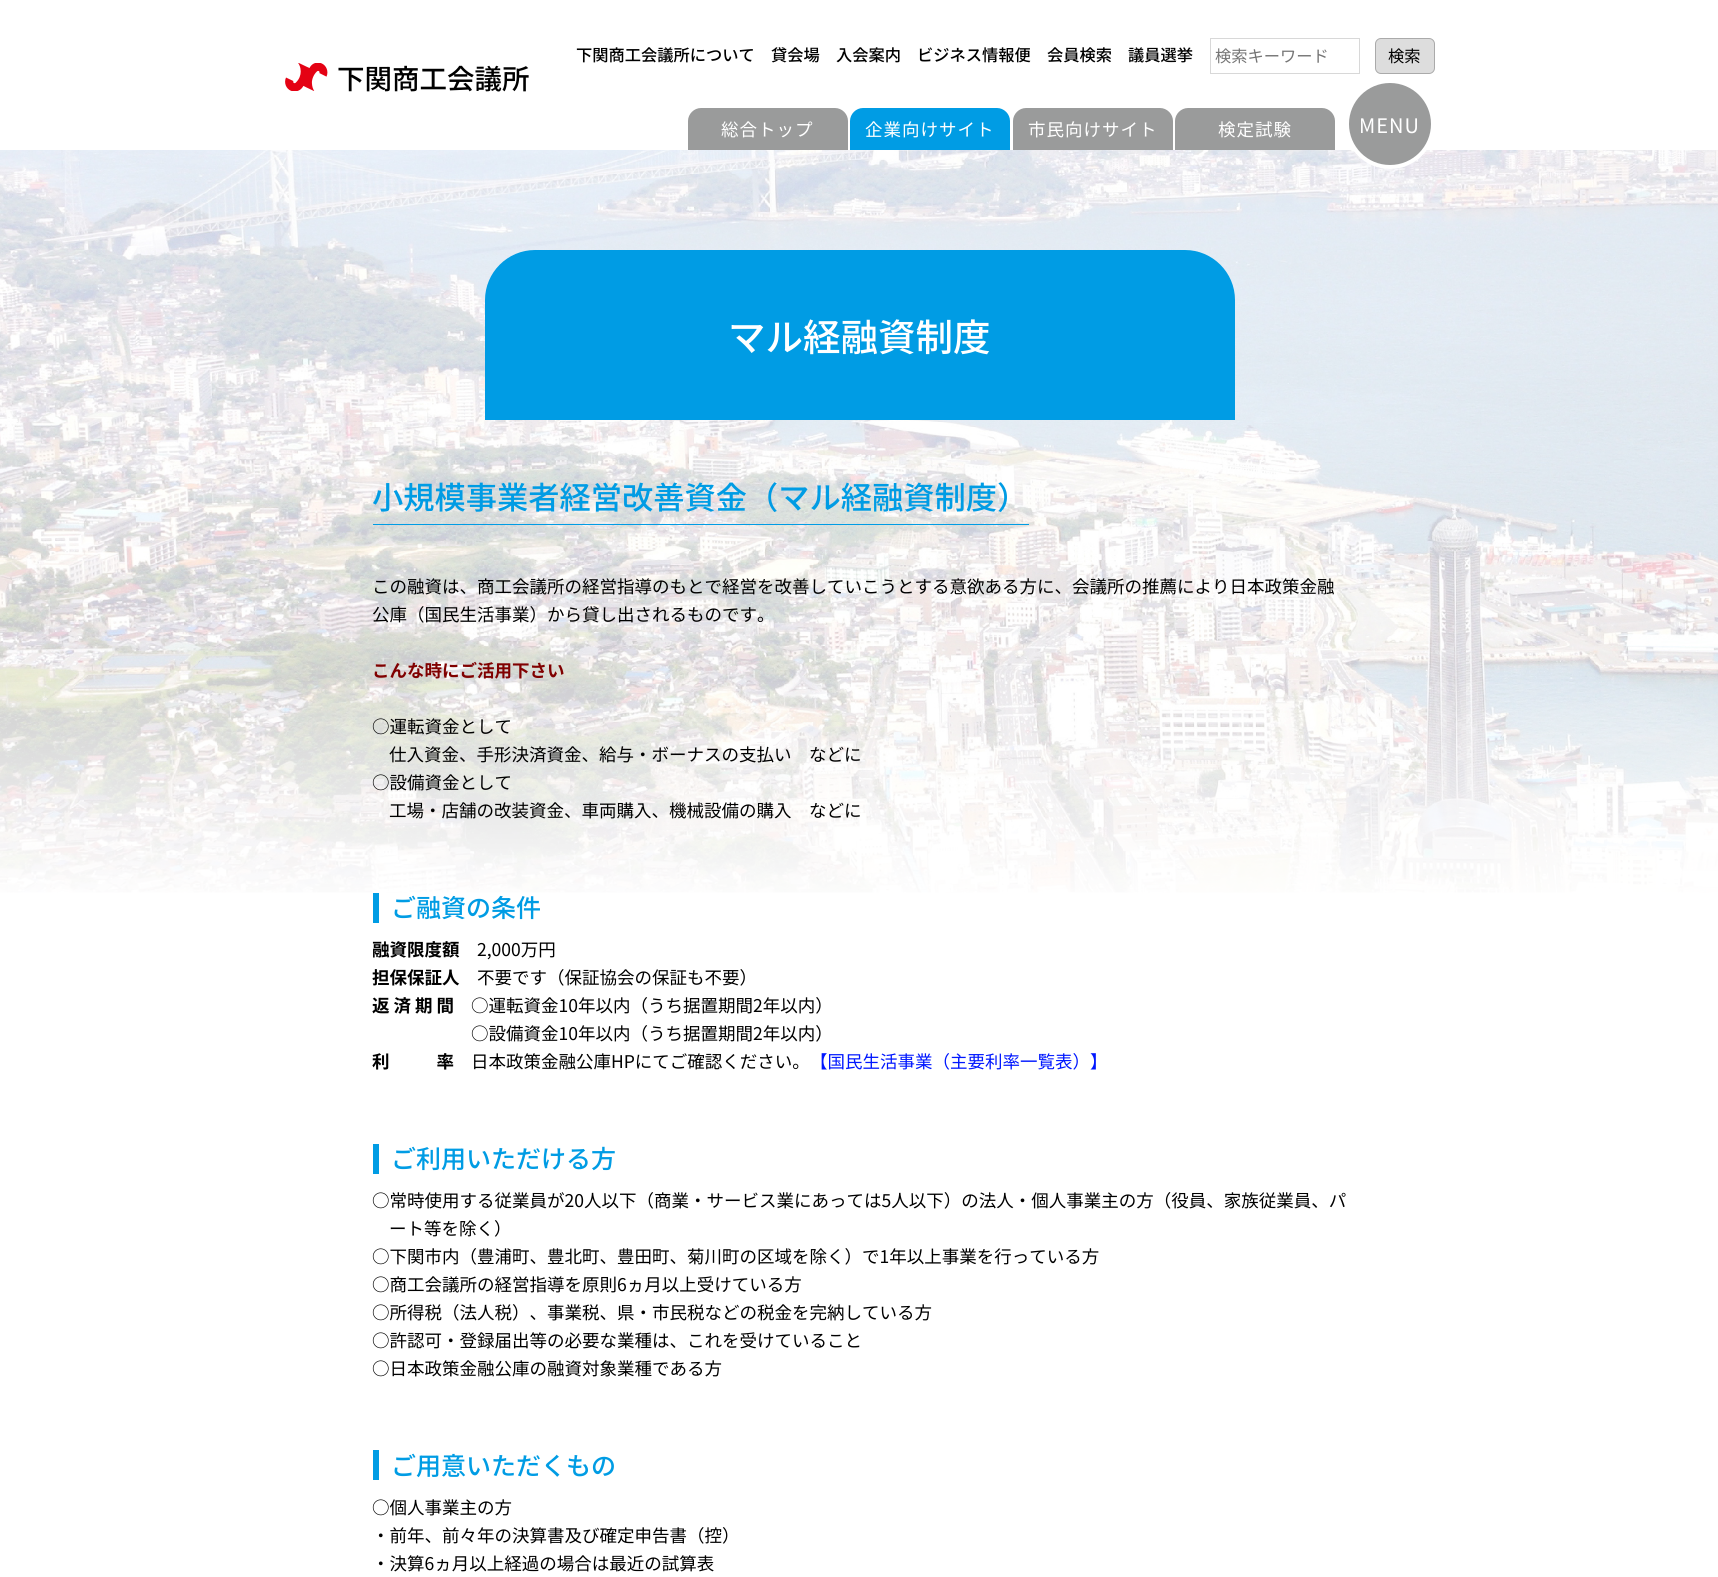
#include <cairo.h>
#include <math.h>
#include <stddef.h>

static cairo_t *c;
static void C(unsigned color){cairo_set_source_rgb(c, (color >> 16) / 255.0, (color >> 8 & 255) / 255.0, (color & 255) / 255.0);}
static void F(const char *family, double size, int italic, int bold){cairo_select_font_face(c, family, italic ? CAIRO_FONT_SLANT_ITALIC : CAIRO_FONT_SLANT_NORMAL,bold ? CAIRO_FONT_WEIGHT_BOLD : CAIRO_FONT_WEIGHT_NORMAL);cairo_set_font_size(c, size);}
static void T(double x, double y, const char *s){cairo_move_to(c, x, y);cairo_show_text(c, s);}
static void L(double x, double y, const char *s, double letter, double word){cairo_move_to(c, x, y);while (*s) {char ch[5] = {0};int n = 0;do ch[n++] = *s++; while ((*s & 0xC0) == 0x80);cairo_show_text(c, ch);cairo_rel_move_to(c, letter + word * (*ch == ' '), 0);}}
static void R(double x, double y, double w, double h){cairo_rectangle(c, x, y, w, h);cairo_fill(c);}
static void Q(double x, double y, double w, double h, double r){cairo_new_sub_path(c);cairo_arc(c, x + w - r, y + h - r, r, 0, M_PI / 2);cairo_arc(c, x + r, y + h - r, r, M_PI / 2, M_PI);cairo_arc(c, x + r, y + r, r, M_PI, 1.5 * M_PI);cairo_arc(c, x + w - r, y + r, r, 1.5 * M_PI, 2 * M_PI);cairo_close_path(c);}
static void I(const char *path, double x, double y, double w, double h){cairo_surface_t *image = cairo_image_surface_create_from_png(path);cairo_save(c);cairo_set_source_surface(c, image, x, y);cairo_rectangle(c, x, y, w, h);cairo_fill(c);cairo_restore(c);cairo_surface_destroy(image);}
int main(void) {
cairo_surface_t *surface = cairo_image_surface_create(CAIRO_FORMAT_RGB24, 1718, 1577);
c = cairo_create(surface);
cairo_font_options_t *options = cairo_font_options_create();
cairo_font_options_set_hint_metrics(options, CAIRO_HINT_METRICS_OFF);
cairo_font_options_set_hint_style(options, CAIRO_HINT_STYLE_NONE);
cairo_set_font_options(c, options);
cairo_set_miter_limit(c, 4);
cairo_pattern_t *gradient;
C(0xffffff);
cairo_paint(c);
F("Noto Sans JP Medium",16.25,0,0);
C(0x000000);
T(576,61,"下関商工会議所について");
T(771,61,"貸会場");
T(836,61,"入会案内");
T(917,61,"ビジネス情報便");
T(1047,61,"会員検索");
T(1128,61,"議員選挙");
cairo_rectangle(c,1210.5,38.5,149,35);
C(0xd8d8d8);
cairo_set_line_width(c,1);
cairo_stroke(c);
F("Noto Sans JP",16.25,0,0);
C(0x757575);
T(1215,62,"検索キーワード");
C(0xdddddd);
Q(1375.5,38.5,59,35,5.5);
cairo_fill_preserve(c);
C(0xaaaaaa);
cairo_stroke(c);
C(0x000000);
T(1388,62,"検索");
I("1.png",285,63,43,28);
F("Noto Sans JP Medium",27.5,0,0);
T(337,89,"下関商工会議所");
C(0x9a9b9b);
cairo_new_path(c);
cairo_move_to(c,701,108);
cairo_line_to(c,835,108);
cairo_curve_to(c,842,108,848,114,848,121);
cairo_line_to(c,848,150);
cairo_line_to(c,688,150);
cairo_line_to(c,688,121);
cairo_curve_to(c,688,114,694,108,701,108);
cairo_close_path(c);
cairo_fill(c);
F("Noto Sans JP",17.5,0,0);
C(0xffffff);
L(721,136,"総合トップ",1,0);
C(0x009ce4);
cairo_new_path(c);
cairo_move_to(c,863,108);
cairo_line_to(c,997,108);
cairo_curve_to(c,1004,108,1010,114,1010,121);
cairo_line_to(c,1010,150);
cairo_line_to(c,850,150);
cairo_line_to(c,850,121);
cairo_curve_to(c,850,114,856,108,863,108);
cairo_close_path(c);
cairo_fill(c);
C(0xffffff);
L(865,136,"企業向けサイト",1,0);
C(0x9a9b9b);
cairo_new_path(c);
cairo_move_to(c,1026,108);
cairo_line_to(c,1160,108);
cairo_curve_to(c,1167,108,1173,114,1173,121);
cairo_line_to(c,1173,150);
cairo_line_to(c,1013,150);
cairo_line_to(c,1013,121);
cairo_curve_to(c,1013,114,1019,108,1026,108);
cairo_close_path(c);
cairo_fill(c);
C(0xffffff);
L(1028,136,"市民向けサイト",1,0);
C(0x9a9b9b);
cairo_new_path(c);
cairo_move_to(c,1188,108);
cairo_line_to(c,1322,108);
cairo_curve_to(c,1329,108,1335,114,1335,121);
cairo_line_to(c,1335,150);
cairo_line_to(c,1175,150);
cairo_line_to(c,1175,121);
cairo_curve_to(c,1175,114,1181,108,1188,108);
cairo_close_path(c);
cairo_fill(c);
C(0xffffff);
L(1218,136,"検定試験",1,0);
I("2.png",0,150,1718,743);
C(0x9a9b9b);
cairo_arc(c,1390,124,43,0,2 * M_PI);
cairo_fill_preserve(c);
C(0xffffff);
cairo_set_line_width(c,4);
cairo_stroke(c);
F("Noto Sans JP",20,0,0);
L(1359,133,"MENU",1,0);
C(0x009ce4);
cairo_new_path(c);
cairo_move_to(c,535,250);
cairo_line_to(c,1185,250);
cairo_curve_to(c,1212.5,250,1235,272.5,1235,300);
cairo_line_to(c,1235,420);
cairo_line_to(c,485,420);
cairo_line_to(c,485,300);
cairo_curve_to(c,485,272.5,507.5,250,535,250);
cairo_close_path(c);
cairo_fill(c);
F("Noto Sans JP Medium",37.5,0,0);
C(0xffffff);
T(728,351,"マル経融資制度");
C(0x009ce4);
R(373,524,656,1);
F("Noto Sans JP Medium",31.25,0,0);
T(372,509,"小規模事業者経営改善資金（マル経融資制度）");
F("Noto Sans JP",17.5,0,0);
C(0x000000);
T(372,593,"この融資は、商工会議所の経営指導のもとで経営を改善していこうとする意欲ある方に、会議所の推薦により日本政策金融");
T(372,621,"公庫（国民生活事業）から貸し出されるものです。");
F("Noto Sans JP",17.5,0,1);
C(0x800000);
T(372,677,"こんな時にご活用下さい");
gradient = cairo_pattern_create_linear(859,670,859,913);
cairo_pattern_add_color_stop_rgba(gradient,0,1,1,1,0);
cairo_pattern_add_color_stop_rgba(gradient,1,1,1,1,1);
cairo_set_source(c,gradient);
cairo_pattern_destroy(gradient);
R(0,682,1718,211);
F("Noto Sans JP",17.5,0,0);
C(0x000000);
T(372,733,"○運転資金として");
T(389,761,"仕入資金、手形決済資金、給与・ボーナスの支払い　などに");
T(372,789,"○設備資金として");
T(389,817,"工場・店舗の改装資金、車両購入、機械設備の購入　などに");
C(0x009ce4);
R(373,893,6,30);
F("Noto Sans JP Medium",25,0,0);
T(391,917,"ご融資の条件");
F("Noto Sans JP",17.5,0,1);
C(0x000000);
T(372,956,"融資限度額");
F("Noto Sans JP",17.5,0,0);
T(477,956,"2,000万円");
F("Noto Sans JP",17.5,0,1);
T(372,984,"担保保証人");
F("Noto Sans JP",17.5,0,0);
T(477,984,"不要です（保証協会の保証も不要）");
F("Noto Sans JP",17.5,0,1);
T(372,1012,"返 済 期 間");
F("Noto Sans JP",17.5,0,0);
T(471,1012,"○運転資金10年以内（うち据置期間2年以内）");
T(471,1040,"○設備資金10年以内（うち据置期間2年以内）");
F("Noto Sans JP",17.5,0,1);
T(372,1068,"利 　 　 率");
F("Noto Sans JP",17.5,0,0);
T(471,1068,"日本政策金融公庫HPにてご確認ください。");
C(0x0017ff);
T(810,1068,"【国民生活事業（主要利率一覧表）】");
C(0x009ce4);
R(373,1144,6,30);
F("Noto Sans JP Medium",25,0,0);
T(391,1168,"ご利用いただける方");
F("Noto Sans JP",17.5,0,0);
C(0x000000);
T(372,1207,"○常時使用する従業員が20人以下（商業・サービス業にあっては5人以下）の法人・個人事業主の方（役員、家族従業員、パ");
T(389,1235,"ート等を除く）");
T(372,1263,"○下関市内（豊浦町、豊北町、豊田町、菊川町の区域を除く）で1年以上事業を行っている方");
T(372,1291,"○商工会議所の経営指導を原則6ヵ月以上受けている方");
T(372,1319,"○所得税（法人税）、事業税、県・市民税などの税金を完納している方");
T(372,1347,"○許認可・登録届出等の必要な業種は、これを受けていること");
T(372,1375,"○日本政策金融公庫の融資対象業種である方");
C(0x009ce4);
R(373,1450,6,30);
F("Noto Sans JP Medium",25,0,0);
T(391,1475,"ご用意いただくもの");
F("Noto Sans JP",17.5,0,0);
C(0x000000);
T(372,1514,"○個人事業主の方");
T(372,1542,"・前年、前々年の決算書及び確定申告書（控）");
T(372,1570,"・決算6ヵ月以上経過の場合は最近の試算表");
cairo_surface_write_to_png(surface, "o.png");
cairo_font_options_destroy(options);
cairo_destroy(c);
cairo_surface_destroy(surface);
return 0;
}
